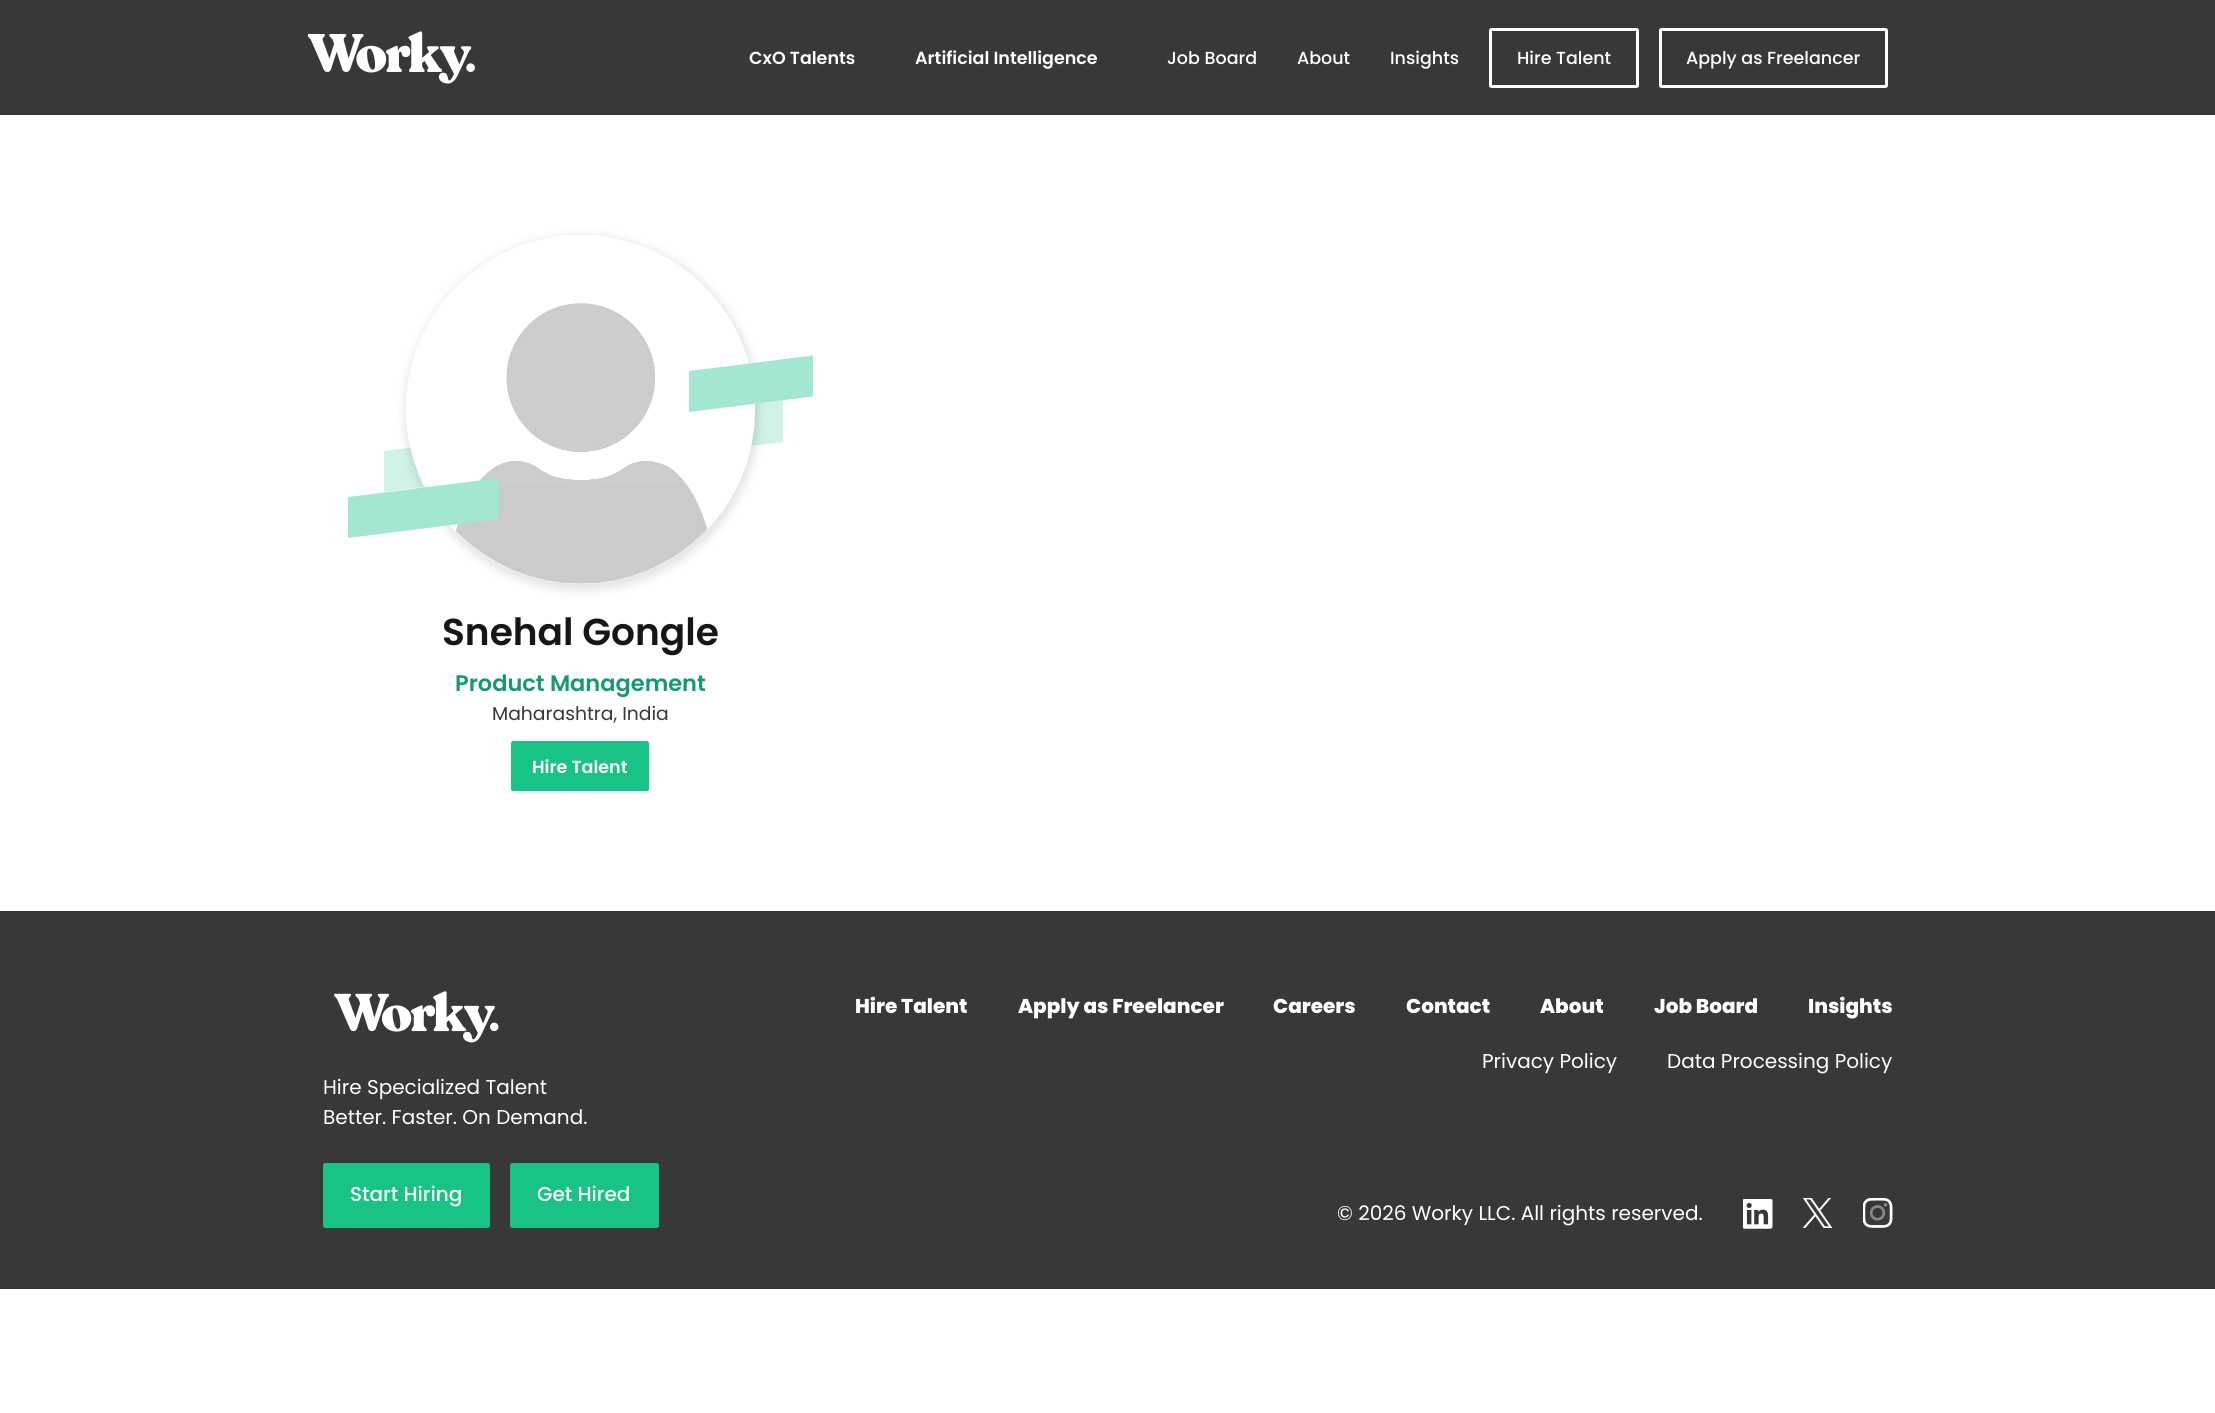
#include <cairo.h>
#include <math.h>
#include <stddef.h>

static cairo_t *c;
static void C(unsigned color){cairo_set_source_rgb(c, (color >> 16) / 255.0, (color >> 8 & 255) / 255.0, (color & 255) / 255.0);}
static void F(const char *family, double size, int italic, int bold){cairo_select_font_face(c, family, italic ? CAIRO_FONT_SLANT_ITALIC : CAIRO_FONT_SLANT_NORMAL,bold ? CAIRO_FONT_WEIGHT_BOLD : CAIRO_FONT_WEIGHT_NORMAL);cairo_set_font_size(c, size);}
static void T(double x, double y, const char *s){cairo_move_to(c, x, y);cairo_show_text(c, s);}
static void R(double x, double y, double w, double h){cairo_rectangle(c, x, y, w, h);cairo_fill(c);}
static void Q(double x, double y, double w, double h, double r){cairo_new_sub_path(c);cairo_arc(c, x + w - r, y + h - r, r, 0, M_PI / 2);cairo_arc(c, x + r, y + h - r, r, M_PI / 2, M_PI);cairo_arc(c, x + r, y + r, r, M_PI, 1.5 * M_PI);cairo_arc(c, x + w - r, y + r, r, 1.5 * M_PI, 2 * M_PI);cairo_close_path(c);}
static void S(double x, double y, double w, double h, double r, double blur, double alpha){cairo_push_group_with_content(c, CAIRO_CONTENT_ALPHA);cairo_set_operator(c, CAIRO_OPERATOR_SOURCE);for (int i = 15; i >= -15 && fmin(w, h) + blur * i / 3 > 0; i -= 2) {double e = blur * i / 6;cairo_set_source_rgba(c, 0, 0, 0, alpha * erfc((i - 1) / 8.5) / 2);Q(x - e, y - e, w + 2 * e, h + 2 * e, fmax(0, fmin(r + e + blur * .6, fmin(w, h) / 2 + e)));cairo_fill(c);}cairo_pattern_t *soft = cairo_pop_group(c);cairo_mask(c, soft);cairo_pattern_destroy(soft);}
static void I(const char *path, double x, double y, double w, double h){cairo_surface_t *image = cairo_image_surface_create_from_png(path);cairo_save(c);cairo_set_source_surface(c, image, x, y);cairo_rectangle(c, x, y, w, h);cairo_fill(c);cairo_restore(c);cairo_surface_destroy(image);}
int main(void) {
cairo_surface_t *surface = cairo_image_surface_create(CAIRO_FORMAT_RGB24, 2215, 1413);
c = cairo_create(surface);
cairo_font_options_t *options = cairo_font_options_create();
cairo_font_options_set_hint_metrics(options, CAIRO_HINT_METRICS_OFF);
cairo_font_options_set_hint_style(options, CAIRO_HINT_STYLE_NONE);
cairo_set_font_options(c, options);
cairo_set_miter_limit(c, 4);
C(0xffffff);
cairo_paint(c);
C(0x383838);
R(0,0,2215,115);
I("1.png",308,31,167,53);
F("Poppins SemiBold",17.5,0,0);
C(0xffffff);
T(749,64,"CxO Talents");
T(915,64,"Artificial Intelligence");
F("Poppins Medium",17.5,0,0);
T(1167,64,"Job Board");
T(1297,64,"About");
T(1390,64,"Insights");
Q(1490.5,29.5,147,57,1);
cairo_set_line_width(c,3);
cairo_stroke(c);
T(1517,64,"Hire Talent");
Q(1660.5,29.5,226,57,1);
cairo_stroke(c);
T(1686,64,"Apply as Freelancer");
C(0xd1f3e7);
cairo_new_path(c);
cairo_move_to(c,717,409);
cairo_line_to(c,783,400);
cairo_line_to(c,783,442);
cairo_line_to(c,717,450);
cairo_close_path(c);
cairo_fill(c);
cairo_new_path(c);
cairo_move_to(c,384,451);
cairo_line_to(c,655,417);
cairo_line_to(c,655,458);
cairo_line_to(c,384,492);
cairo_close_path(c);
cairo_fill(c);
cairo_save(c);
cairo_set_fill_rule(c,CAIRO_FILL_RULE_EVEN_ODD);
cairo_new_path(c);
cairo_move_to(c,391,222);
cairo_line_to(c,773,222);
cairo_line_to(c,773,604);
cairo_line_to(c,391,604);
cairo_close_path(c);
cairo_move_to(c,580.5,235);
cairo_curve_to(c,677,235,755,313,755,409.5);
cairo_curve_to(c,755,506,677,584,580.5,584);
cairo_curve_to(c,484,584,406,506,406,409.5);
cairo_curve_to(c,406,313,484,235,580.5,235);
cairo_close_path(c);
cairo_clip(c);
C(0x000000);
S(404,235,356,356,178,4,.1);
cairo_restore(c);
I("2.png",407,285,348,299);
cairo_save(c);
cairo_rectangle(c,348,316,465,222);
cairo_clip(c);
C(0xa3e7ce);
cairo_new_path(c);
cairo_move_to(c,689,371);
cairo_line_to(c,960,337);
cairo_line_to(c,960,378);
cairo_line_to(c,689,412);
cairo_close_path(c);
cairo_fill(c);
cairo_restore(c);
C(0xa3e7ce);
cairo_new_path(c);
cairo_move_to(c,348,497);
cairo_line_to(c,499,478);
cairo_line_to(c,499,519);
cairo_line_to(c,348,538);
cairo_close_path(c);
cairo_fill(c);
F("Poppins SemiBold",37.5,0,0);
C(0x161616);
T(442,645,"Snehal Gongle");
F("Poppins SemiBold",22.5,0,0);
C(0x149b6a);
T(455,691,"Product Management");
F("Poppins",18.75,0,0);
C(0x383838);
T(492,720,"Maharashtra, India");
C(0x101828);
S(511,743,138,50,2.5,1,.05);
C(0x19c285);
Q(511.5,741.5,137,49,2);
cairo_fill_preserve(c);
cairo_set_line_width(c,1);
cairo_stroke(c);
F("Poppins SemiBold",17.5,0,0);
C(0xffffff);
T(532,773,"Hire Talent");
C(0x383838);
R(0,911,2215,378);
I("3.png",334,991,165,52);
F("Poppins",20,0,0);
C(0xffffff);
T(323,1094,"Hire Specialized Talent");
T(323,1124,"Better. Faster. On Demand.");
C(0x19c285);
Q(324.5,1164.5,164,62,1);
cairo_fill_preserve(c);
cairo_set_line_width(c,3);
cairo_stroke(c);
F("Poppins Medium",20,0,0);
C(0xffffff);
T(350,1201,"Start Hiring");
C(0x19c285);
Q(511.5,1164.5,146,62,1);
cairo_fill_preserve(c);
cairo_stroke(c);
C(0xffffff);
T(537,1201,"Get Hired");
F("Poppins ExtraBold",20,0,0);
T(855,1013,"Hire Talent");
T(1018,1013,"Apply as Freelancer");
T(1273,1013,"Careers");
T(1406,1013,"Contact");
T(1540,1013,"About");
T(1654,1013,"Job Board");
T(1808,1013,"Insights");
F("Poppins",20,0,0);
T(1482,1068,"Privacy Policy");
T(1667,1068,"Data Processing Policy");
T(1337,1220,"© 2026 Worky LLC. All rights reserved.");
I("4.png",1743,1199,30,30);
I("5.png",1803,1198,30,30);
I("6.png",1863,1198,30,30);
cairo_surface_write_to_png(surface, "o.png");
cairo_font_options_destroy(options);
cairo_destroy(c);
cairo_surface_destroy(surface);
return 0;
}
